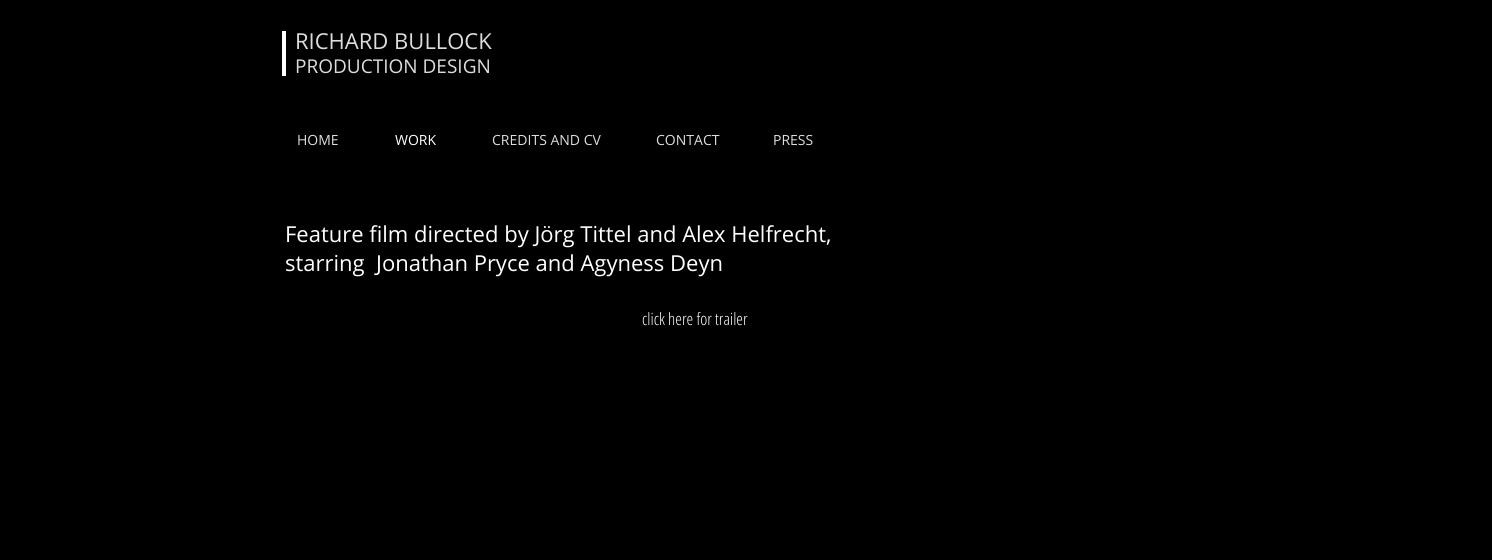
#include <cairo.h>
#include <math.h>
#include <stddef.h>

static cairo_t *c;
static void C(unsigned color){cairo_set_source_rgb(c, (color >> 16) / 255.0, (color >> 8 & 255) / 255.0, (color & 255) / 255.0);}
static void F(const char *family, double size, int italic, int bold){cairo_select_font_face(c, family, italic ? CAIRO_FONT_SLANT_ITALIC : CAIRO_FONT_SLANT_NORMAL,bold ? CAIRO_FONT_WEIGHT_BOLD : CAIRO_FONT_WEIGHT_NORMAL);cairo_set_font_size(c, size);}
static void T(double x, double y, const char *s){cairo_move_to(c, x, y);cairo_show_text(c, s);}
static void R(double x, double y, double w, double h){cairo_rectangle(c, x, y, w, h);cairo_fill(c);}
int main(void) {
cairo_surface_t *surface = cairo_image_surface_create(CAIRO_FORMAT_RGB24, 1492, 560);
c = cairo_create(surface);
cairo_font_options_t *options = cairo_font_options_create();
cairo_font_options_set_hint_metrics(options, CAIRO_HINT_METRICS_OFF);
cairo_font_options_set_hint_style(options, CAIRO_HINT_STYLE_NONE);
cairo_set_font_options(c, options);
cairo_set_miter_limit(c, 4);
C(0x000000);
cairo_paint(c);
C(0xffffff);
R(282,31,4,45);
F("Open Sans",22,0,0);
C(0xdddddd);
T(295,49,"RICHARD BULLOCK");
F("Open Sans",19,0,0);
T(295,73,"PRODUCTION DESIGN");
F("Open Sans",14,0,0);
T(297,145,"HOME");
C(0xffffff);
T(395,145,"WORK");
C(0xdddddd);
T(492,145,"CREDITS AND CV");
T(656,145,"CONTACT");
T(773,145,"PRESS");
F("Open Sans",22,0,0);
C(0xffffff);
T(285,242,"Feature film directed by Jörg Tittel and Alex Helfrecht,");
T(285,271,"starring  Jonathan Pryce and Agyness Deyn");
F("Open Sans Condensed Light",17,0,0);
T(642,325,"click here for trailer");
cairo_surface_write_to_png(surface, "o.png");
cairo_font_options_destroy(options);
cairo_destroy(c);
cairo_surface_destroy(surface);
return 0;
}
